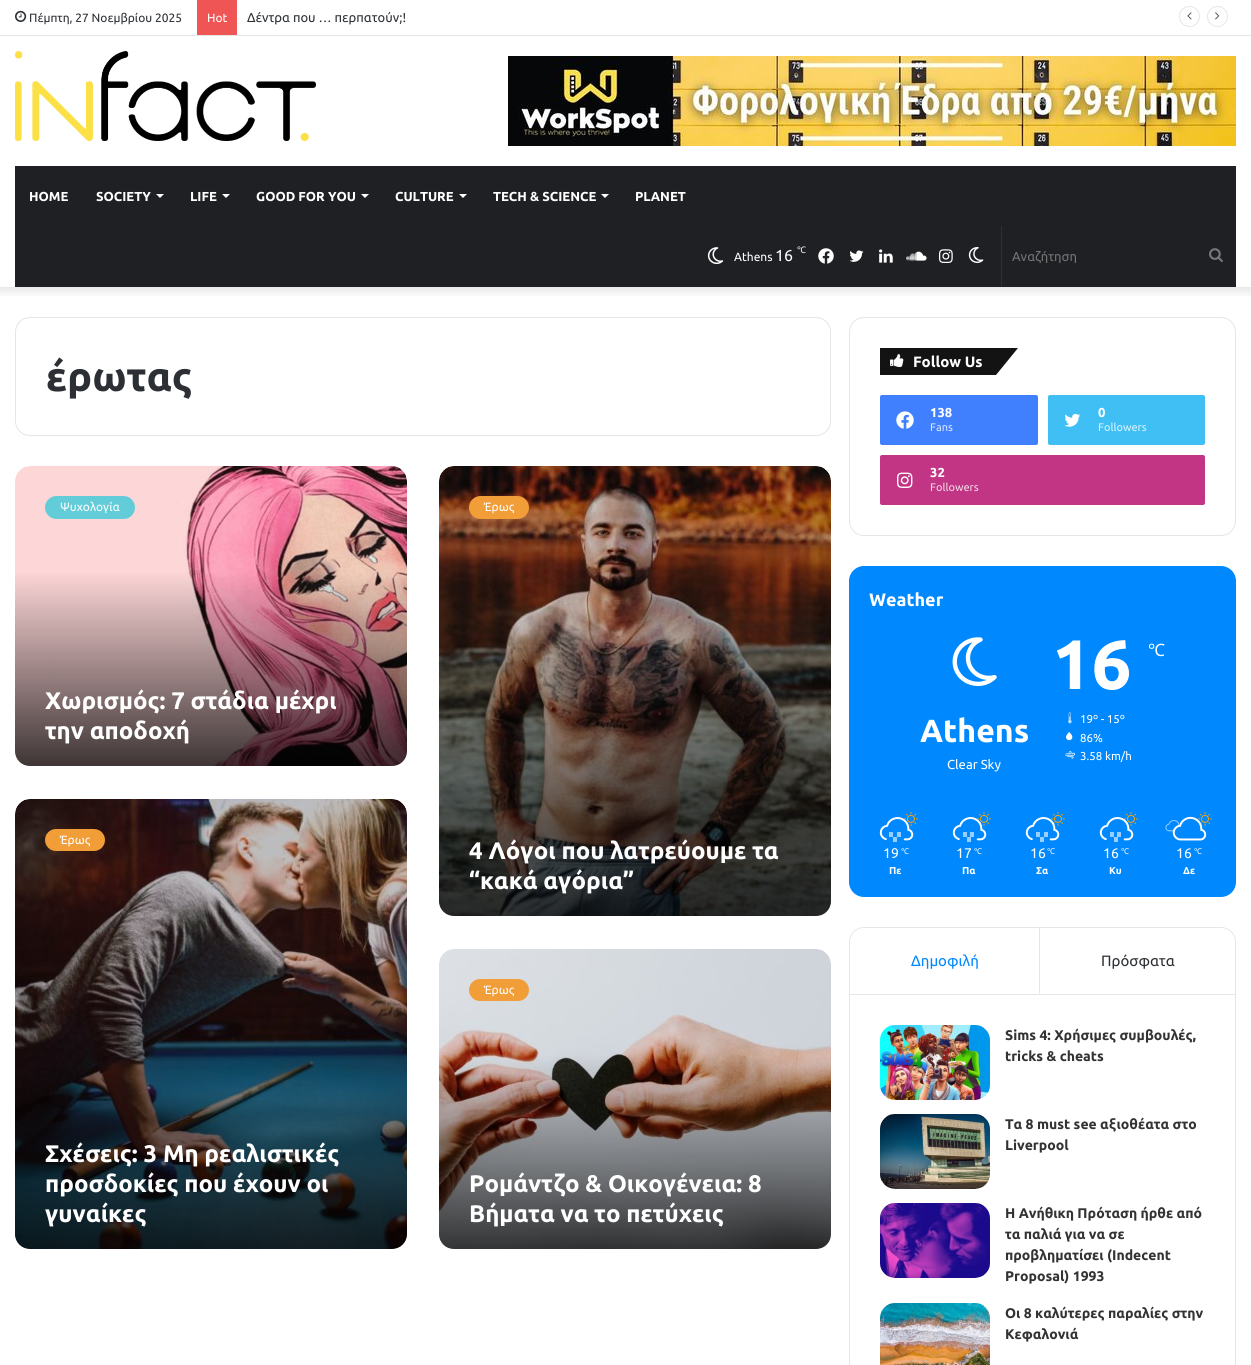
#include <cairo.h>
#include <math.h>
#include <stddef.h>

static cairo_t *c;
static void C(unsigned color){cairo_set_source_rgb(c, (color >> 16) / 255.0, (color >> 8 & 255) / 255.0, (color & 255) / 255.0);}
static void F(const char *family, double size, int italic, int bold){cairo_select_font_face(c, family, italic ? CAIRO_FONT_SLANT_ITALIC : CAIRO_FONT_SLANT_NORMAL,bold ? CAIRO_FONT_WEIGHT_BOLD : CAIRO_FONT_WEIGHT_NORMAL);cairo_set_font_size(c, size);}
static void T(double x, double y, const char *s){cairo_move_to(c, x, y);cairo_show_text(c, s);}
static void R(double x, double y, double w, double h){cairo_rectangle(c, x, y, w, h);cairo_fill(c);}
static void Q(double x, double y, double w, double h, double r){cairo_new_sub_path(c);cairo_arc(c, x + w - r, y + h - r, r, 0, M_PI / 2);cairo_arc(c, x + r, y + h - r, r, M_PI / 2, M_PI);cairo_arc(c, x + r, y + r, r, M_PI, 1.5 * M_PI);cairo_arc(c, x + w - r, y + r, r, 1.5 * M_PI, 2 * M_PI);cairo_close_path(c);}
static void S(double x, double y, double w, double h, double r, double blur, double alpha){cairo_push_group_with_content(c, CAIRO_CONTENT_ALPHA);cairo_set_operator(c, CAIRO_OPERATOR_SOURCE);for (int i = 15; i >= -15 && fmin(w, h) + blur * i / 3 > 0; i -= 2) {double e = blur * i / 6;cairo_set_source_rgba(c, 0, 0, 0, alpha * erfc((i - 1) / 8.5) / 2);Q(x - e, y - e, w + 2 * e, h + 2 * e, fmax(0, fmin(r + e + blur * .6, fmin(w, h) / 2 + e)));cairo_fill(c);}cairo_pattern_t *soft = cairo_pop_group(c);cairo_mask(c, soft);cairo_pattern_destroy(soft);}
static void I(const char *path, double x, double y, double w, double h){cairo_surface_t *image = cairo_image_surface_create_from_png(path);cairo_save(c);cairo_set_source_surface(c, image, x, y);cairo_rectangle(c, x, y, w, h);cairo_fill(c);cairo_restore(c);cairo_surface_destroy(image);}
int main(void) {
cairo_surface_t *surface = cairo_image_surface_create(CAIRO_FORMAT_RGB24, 1251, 1365);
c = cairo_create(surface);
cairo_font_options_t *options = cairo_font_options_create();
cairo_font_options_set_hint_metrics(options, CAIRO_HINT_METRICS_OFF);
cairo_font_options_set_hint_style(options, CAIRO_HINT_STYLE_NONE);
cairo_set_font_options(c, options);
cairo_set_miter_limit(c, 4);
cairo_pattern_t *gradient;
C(0xffffff);
cairo_paint(c);
cairo_save(c);
cairo_rectangle(c,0,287,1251,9);
cairo_clip(c);
C(0x000000);
S(-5,-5,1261,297,0,5,.1);
cairo_restore(c);
C(0xe6e6e6);
R(0,35,1251,1);
I("1.png",15,10,12,12);
F("Ubuntu",12,0,0);
C(0x2c2f34);
T(29,22,"Πέμπτη, 27 Νοεμβρίου 2025");
C(0xf05555);
R(197,0,40,35);
C(0xffffff);
T(207,22,"Hot");
F("Ubuntu",13,0,0);
C(0x2c2f34);
T(247,22,"Δέντρα που … περπατούν;!");
cairo_new_path(c);
cairo_arc(c,1189.5,16.5,10,0,2 * M_PI);
C(0xe6e6e6);
cairo_set_line_width(c,1);
cairo_stroke(c);
I("2.png",1187,12,5,8);
cairo_arc(c,1217.5,16.5,10,0,2 * M_PI);
cairo_stroke(c);
I("3.png",1215,12,5,8);
I("4.png",15,51,301,90);
I("5.png",508,56,728,90);
C(0x1f2024);
R(15,166,1221,121);
F("Ubuntu",13,0,1);
C(0xffffff);
T(29,201,"HOME");
T(96,201,"SOCIETY");
cairo_new_path(c);
cairo_move_to(c,156,194);
cairo_line_to(c,164,194);
cairo_line_to(c,160,198);
cairo_close_path(c);
cairo_fill(c);
T(190,201,"LIFE");
cairo_new_path(c);
cairo_move_to(c,222,194);
cairo_line_to(c,230,194);
cairo_line_to(c,226,198);
cairo_close_path(c);
cairo_fill(c);
T(256,201,"GOOD FOR YOU");
cairo_new_path(c);
cairo_move_to(c,361,194);
cairo_line_to(c,369,194);
cairo_line_to(c,365,198);
cairo_close_path(c);
cairo_fill(c);
T(395,201,"CULTURE");
cairo_new_path(c);
cairo_move_to(c,459,194);
cairo_line_to(c,467,194);
cairo_line_to(c,463,198);
cairo_close_path(c);
cairo_fill(c);
T(493,201,"TECH & SCIENCE");
cairo_new_path(c);
cairo_move_to(c,601,194);
cairo_line_to(c,609,194);
cairo_line_to(c,605,198);
cairo_close_path(c);
cairo_fill(c);
T(635,201,"PLANET");
I("6.png",707,247,17,18);
F("Ubuntu",12,0,0);
T(734,261,"Athens");
F("Ubuntu",16,0,0);
T(775,261,"16");
F("Noto Sans",9,0,0);
T(797,253,"℃");
I("7.png",818,248,16,16);
I("8.png",849,250,15,12);
I("9.png",879,249,14,14);
I("10.png",906,251,21,10);
I("11.png",939,249,14,14);
I("12.png",968,247,16,16);
C(0x2f3033);
R(1001,226,1,60);
cairo_save(c);
cairo_rectangle(c,1012,249,199,14);
cairo_clip(c);
F("Ubuntu",13,0,0);
C(0x757575);
T(1012,261,"Αναζήτηση");
cairo_restore(c);
I("13.png",1209,248,14,14);
Q(15.5,317.5,815,118,14.5);
C(0xe6e6e6);
cairo_stroke(c);
F("Ubuntu",41,0,1);
C(0x2c2f34);
T(46,391,"έρωτας");
I("14.png",15,466,392,300);
C(0x62cdd9);
Q(45,496,90,23,11.5);
cairo_fill(c);
F("Ubuntu",12,0,0);
C(0xffffff);
T(60,511,"Ψυχολογία");
gradient = cairo_pattern_create_linear(211,571,211,766);
cairo_pattern_add_color_stop_rgba(gradient,0,0,0,0,0);
cairo_pattern_add_color_stop_rgba(gradient,1,0,0,0,.75);
cairo_set_source(c,gradient);
cairo_pattern_destroy(gradient);
cairo_new_path(c);
cairo_move_to(c,15,571);
cairo_line_to(c,407,571);
cairo_line_to(c,407,751);
cairo_curve_to(c,407,759.5,400.5,766,392,766);
cairo_line_to(c,30,766);
cairo_curve_to(c,21.5,766,15,759.5,15,751);
cairo_close_path(c);
cairo_fill(c);
F("Ubuntu",24,0,1);
C(0xffffff);
T(45,709,"Χωρισμός: 7 στάδια μέχρι");
T(45,739,"την αποδοχή");
I("15.png",439,466,392,450);
C(0xf29e38);
Q(469,496,60,23,11.5);
cairo_fill(c);
F("Ubuntu",12,0,0);
C(0xffffff);
T(484,511,"Έρως");
gradient = cairo_pattern_create_linear(635,624,635,916);
cairo_pattern_add_color_stop_rgba(gradient,0,0,0,0,0);
cairo_pattern_add_color_stop_rgba(gradient,1,0,0,0,.75);
cairo_set_source(c,gradient);
cairo_pattern_destroy(gradient);
cairo_new_path(c);
cairo_move_to(c,439,624);
cairo_line_to(c,831,624);
cairo_line_to(c,831,901);
cairo_curve_to(c,831,909.5,824.5,916,816,916);
cairo_line_to(c,454,916);
cairo_curve_to(c,445.5,916,439,909.5,439,901);
cairo_close_path(c);
cairo_fill(c);
F("Ubuntu",24,0,1);
C(0xffffff);
T(469,859,"4 Λόγοι που λατρεύουμε τα");
T(469,889,"“κακά αγόρια”");
I("16.png",15,799,392,450);
C(0xf29e38);
Q(45,829,60,22,11);
cairo_fill(c);
F("Ubuntu",12,0,0);
C(0xffffff);
T(60,844,"Έρως");
gradient = cairo_pattern_create_linear(211,957,211,1249);
cairo_pattern_add_color_stop_rgba(gradient,0,0,0,0,0);
cairo_pattern_add_color_stop_rgba(gradient,1,0,0,0,.75);
cairo_set_source(c,gradient);
cairo_pattern_destroy(gradient);
cairo_new_path(c);
cairo_move_to(c,15,957);
cairo_line_to(c,407,957);
cairo_line_to(c,407,1234);
cairo_curve_to(c,407,1242.5,400.5,1249,392,1249);
cairo_line_to(c,30,1249);
cairo_curve_to(c,21.5,1249,15,1242.5,15,1234);
cairo_close_path(c);
cairo_fill(c);
F("Ubuntu",24,0,1);
C(0xffffff);
T(45,1162,"Σχέσεις: 3 Μη ρεαλιστικές");
T(45,1192,"προσδοκίες που έχουν οι");
T(45,1222,"γυναίκες");
I("17.png",439,949,392,300);
C(0xf29e38);
Q(469,979,60,22,11);
cairo_fill(c);
F("Ubuntu",12,0,0);
C(0xffffff);
T(484,994,"Έρως");
gradient = cairo_pattern_create_linear(635,1054,635,1249);
cairo_pattern_add_color_stop_rgba(gradient,0,0,0,0,0);
cairo_pattern_add_color_stop_rgba(gradient,1,0,0,0,.75);
cairo_set_source(c,gradient);
cairo_pattern_destroy(gradient);
cairo_new_path(c);
cairo_move_to(c,439,1054);
cairo_line_to(c,831,1054);
cairo_line_to(c,831,1234);
cairo_curve_to(c,831,1242.5,824.5,1249,816,1249);
cairo_line_to(c,454,1249);
cairo_curve_to(c,445.5,1249,439,1242.5,439,1234);
cairo_close_path(c);
cairo_fill(c);
F("Ubuntu",24,0,1);
C(0xffffff);
T(469,1192,"Ρομάντζο & Οικογένεια: 8");
T(469,1222,"Βήματα να το πετύχεις");
Q(849.5,317.5,386,218,14.5);
C(0xe6e6e6);
cairo_stroke(c);
C(0x131313);
R(880,348,59,27);
cairo_new_path(c);
cairo_move_to(c,939,348);
cairo_line_to(c,1018,348);
cairo_line_to(c,996,375);
cairo_line_to(c,917,375);
cairo_close_path(c);
cairo_fill(c);
I("18.png",890,354,14,13);
F("Ubuntu",15,0,1);
C(0xffffff);
T(913,367,"Follow Us");
C(0x4080ff);
Q(880,395,158,50,2);
cairo_fill(c);
I("19.png",896,411,18,18);
F("Ubuntu",13,0,1);
C(0xffffff);
T(930,417,"138");
F("Ubuntu",11,0,0);
C(0xd9e6ff);
T(930,431,"Fans");
C(0x40bff5);
Q(1048,395,157,50,2);
cairo_fill(c);
I("20.png",1064,413,17,14);
F("Ubuntu",13,0,1);
C(0xffffff);
T(1098,417,"0");
F("Ubuntu",11,0,0);
C(0xd9f2fd);
T(1098,431,"Followers");
C(0xc13584);
Q(880,455,325,50,2);
cairo_fill(c);
I("21.png",897,472,16,16);
F("Ubuntu",13,0,1);
C(0xffffff);
T(930,477,"32");
F("Ubuntu",11,0,0);
C(0xf3d7e6);
T(930,491,"Followers");
C(0x0088ff);
Q(849,566,387,331,15);
cairo_fill(c);
F("Ubuntu",18,0,1);
C(0xffffff);
T(869,606,"Weather");
I("22.png",952,637,45,49);
F("Ubuntu",32,0,1);
T(920,742,"Athens");
F("Ubuntu",13,0,0);
T(947,769,"Clear Sky");
F("Ubuntu",70,0,1);
T(1052,689,"16");
F("Noto Sans",17,0,0);
T(1148,656,"℃");
I("23.png",1068,712,4,12);
F("Ubuntu",11.5,0,0);
T(1080,723,"19º - 15º");
I("24.png",1066,732,7,9);
T(1080,742,"86%");
I("25.png",1065,751,10,8);
T(1080,760,"3.58 km/h");
I("26.png",904,812,14,14);
I("28.png",904,819,3,5);
I("27.png",879,817,35,24);
C(0x99cfff);
R(889,832,4,5);
R(897,832,4,5);
R(893,837,4,5);
F("Ubuntu",14,0,0);
C(0xffffff);
T(883,858,"19");
F("Noto Sans",8,0,0);
T(901,854,"℃");
F("Ubuntu",10,0,1);
T(889,874,"Πε");
I("26.png",977,812,14,14);
I("30.png",977,819,4,5);
I("29.png",952,817,35,24);
C(0x99cfff);
R(963,832,4,5);
R(970,832,4,5);
R(967,837,4,5);
F("Ubuntu",14,0,0);
C(0xffffff);
T(956,858,"17");
F("Noto Sans",8,0,0);
T(974,854,"℃");
F("Ubuntu",10,0,1);
T(962,874,"Πα");
I("26.png",1051,812,14,14);
I("28.png",1051,819,3,5);
I("31.png",1025,817,35,24);
C(0x99cfff);
R(1036,832,4,5);
R(1044,832,4,5);
R(1040,837,4,5);
F("Ubuntu",14,0,0);
C(0xffffff);
T(1030,858,"16");
F("Noto Sans",8,0,0);
T(1047,854,"℃");
F("Ubuntu",10,0,1);
T(1036,874,"Σα");
I("26.png",1124,812,14,14);
I("28.png",1124,819,3,5);
I("27.png",1099,817,35,24);
C(0x99cfff);
R(1110,832,4,5);
R(1117,832,4,5);
R(1114,837,4,5);
F("Ubuntu",14,0,0);
C(0xffffff);
T(1103,858,"16");
F("Noto Sans",8,0,0);
T(1121,854,"℃");
F("Ubuntu",10,0,1);
T(1109,874,"Κυ");
I("26.png",1198,812,14,14);
I("34.png",1165,820,15,12);
I("33.png",1172,819,29,13);
I("32.png",1172,816,35,25);
F("Ubuntu",14,0,0);
T(1176,858,"16");
F("Noto Sans",8,0,0);
T(1194,854,"℃");
F("Ubuntu",10,0,1);
T(1183,874,"Δε");
Q(849.5,927.5,386,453,14.5);
C(0xe6e6e6);
cairo_stroke(c);
R(850,994,385,1);
C(0xffffff);
cairo_new_path(c);
cairo_move_to(c,865,928);
cairo_line_to(c,1040,928);
cairo_line_to(c,1040,994);
cairo_line_to(c,850,994);
cairo_line_to(c,850,943);
cairo_curve_to(c,850,934.5,856.5,928,865,928);
cairo_close_path(c);
cairo_fill(c);
C(0xe6e6e6);
cairo_new_path(c);
cairo_move_to(c,1040,928);
cairo_line_to(c,1039,928);
cairo_line_to(c,1039,993);
cairo_line_to(c,1040,994);
cairo_close_path(c);
cairo_fill(c);
F("Ubuntu",15,0,0);
C(0x0088ff);
T(911,966,"Δημοφιλή");
C(0x2c2f34);
T(1101,966,"Πρόσφατα");
I("35.png",880,1025,110,75);
F("Ubuntu",14,0,1);
C(0x333333);
T(1005,1040,"Sims 4: Χρήσιμες συμβουλές,");
T(1005,1061,"tricks & cheats");
I("36.png",880,1114,110,75);
T(1005,1129,"Τα 8 must see αξιοθέατα στο");
T(1005,1150,"Liverpool");
I("37.png",880,1203,110,75);
T(1005,1218,"Η Ανήθικη Πρόταση ήρθε από");
T(1005,1239,"τα παλιά για να σε");
T(1005,1260,"προβληματίσει (Indecent");
T(1005,1281,"Proposal) 1993");
I("38.png",880,1303,110,62);
T(1005,1318,"Οι 8 καλύτερες παραλίες στην");
T(1005,1339,"Κεφαλονιά");
cairo_surface_write_to_png(surface, "o.png");
cairo_font_options_destroy(options);
cairo_destroy(c);
cairo_surface_destroy(surface);
return 0;
}
